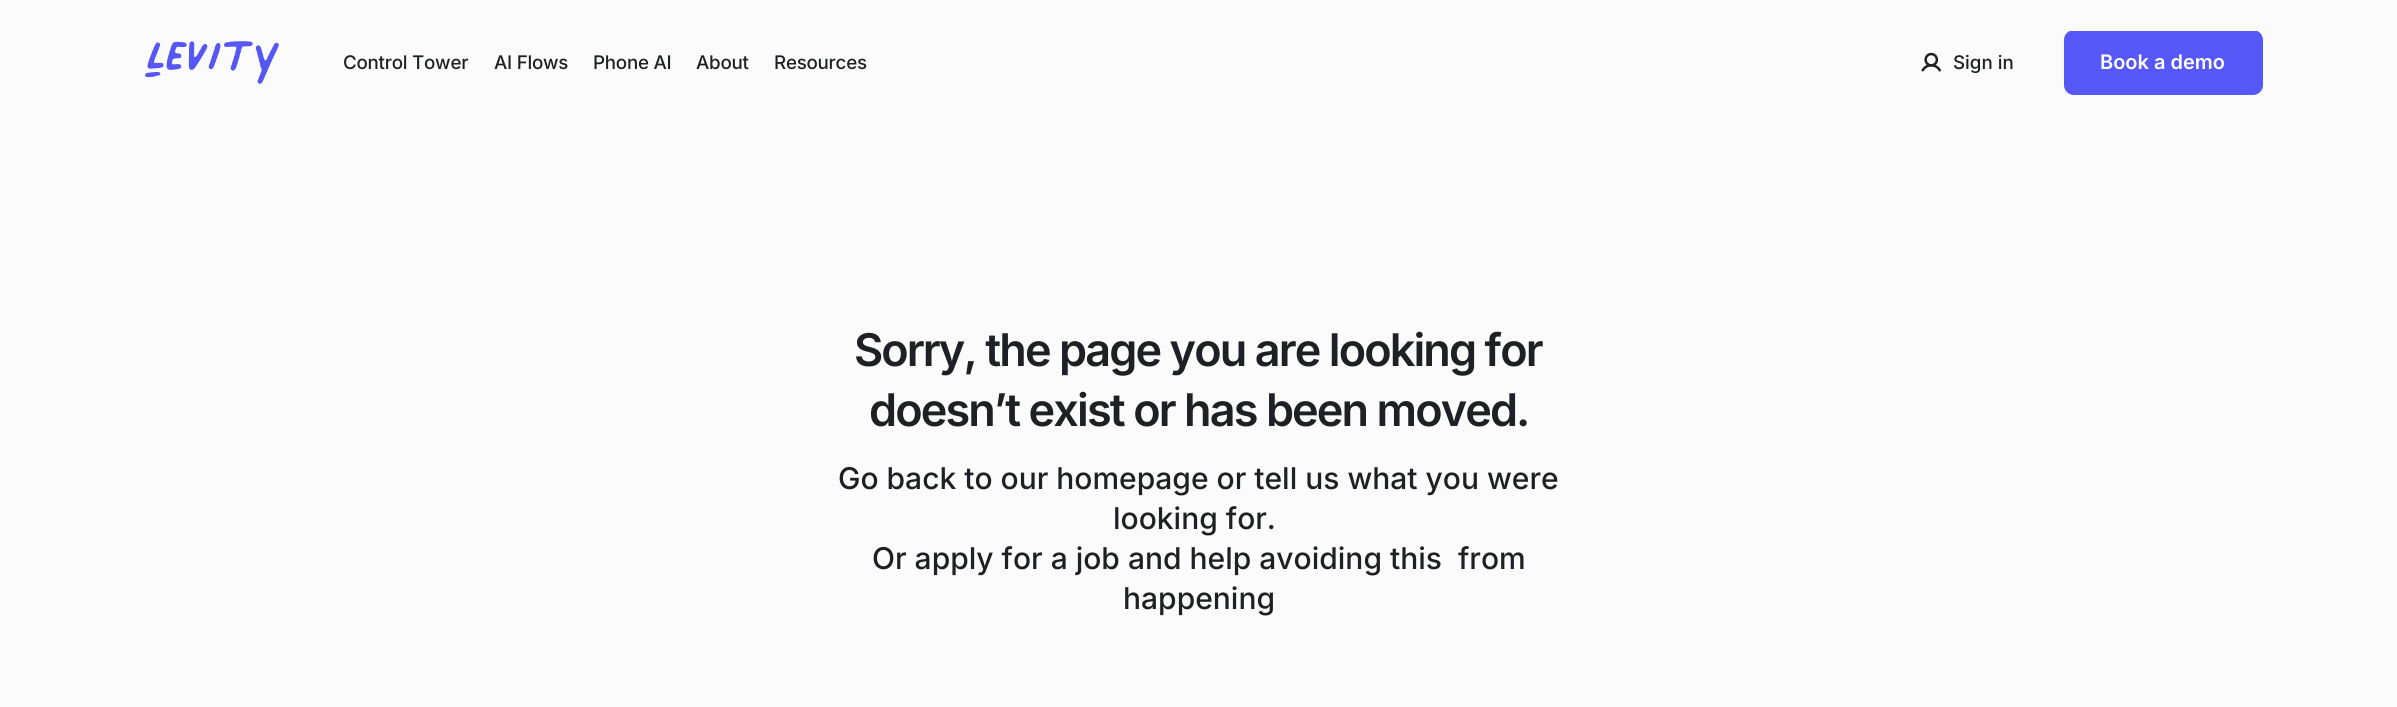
#include <cairo.h>
#include <math.h>
#include <stddef.h>

static cairo_t *c;
static void C(unsigned color){cairo_set_source_rgb(c, (color >> 16) / 255.0, (color >> 8 & 255) / 255.0, (color & 255) / 255.0);}
static void F(const char *family, double size, int italic, int bold){cairo_select_font_face(c, family, italic ? CAIRO_FONT_SLANT_ITALIC : CAIRO_FONT_SLANT_NORMAL,bold ? CAIRO_FONT_WEIGHT_BOLD : CAIRO_FONT_WEIGHT_NORMAL);cairo_set_font_size(c, size);}
static void T(double x, double y, const char *s){cairo_move_to(c, x, y);cairo_show_text(c, s);}
static void L(double x, double y, const char *s, double letter, double word){cairo_move_to(c, x, y);while (*s) {char ch[5] = {0};int n = 0;do ch[n++] = *s++; while ((*s & 0xC0) == 0x80);cairo_show_text(c, ch);cairo_rel_move_to(c, letter + word * (*ch == ' '), 0);}}
static void Q(double x, double y, double w, double h, double r){cairo_new_sub_path(c);cairo_arc(c, x + w - r, y + h - r, r, 0, M_PI / 2);cairo_arc(c, x + r, y + h - r, r, M_PI / 2, M_PI);cairo_arc(c, x + r, y + r, r, M_PI, 1.5 * M_PI);cairo_arc(c, x + w - r, y + r, r, 1.5 * M_PI, 2 * M_PI);cairo_close_path(c);}
static void I(const char *path, double x, double y, double w, double h){cairo_surface_t *image = cairo_image_surface_create_from_png(path);cairo_save(c);cairo_set_source_surface(c, image, x, y);cairo_rectangle(c, x, y, w, h);cairo_fill(c);cairo_restore(c);cairo_surface_destroy(image);}
int main(void) {
cairo_surface_t *surface = cairo_image_surface_create(CAIRO_FORMAT_RGB24, 2397, 707);
c = cairo_create(surface);
cairo_font_options_t *options = cairo_font_options_create();
cairo_font_options_set_hint_metrics(options, CAIRO_HINT_METRICS_OFF);
cairo_font_options_set_hint_style(options, CAIRO_HINT_STYLE_NONE);
cairo_set_font_options(c, options);
cairo_set_miter_limit(c, 4);
C(0xfbfbfb);
cairo_paint(c);
I("1.png",145,41,134,43);
F("Inter Medium",18.75,0,0);
C(0x1f2024);
L(343,69,"Control Tower",-.25,0);
L(494,69,"AI Flows",-.25,0);
L(593,69,"Phone AI",-.25,0);
L(696,69,"About",-.25,0);
L(774,69,"Resources",-.25,0);
I("2.png",1921,52,20,20);
T(1953,69,"Sign in");
cairo_save(c);
cairo_rectangle(c,135,31,2128,64);
cairo_clip(c);
C(0x5557f6);
Q(2064,30,199,65,10);
cairo_fill(c);
cairo_restore(c);
F("Inter SemiBold",20,0,0);
C(0xffffff);
T(2100,69,"Book a demo");
F("Inter SemiBold",45,0,0);
C(0x1f2024);
L(854,366,"Sorry, the page you are looking for",-1.9,0);
L(869,426,"doesn’t exist or has been moved.",-1.9,0);
F("Inter Medium",30,0,0);
T(838,489,"Go back to our homepage or tell us what you were");
T(1113,529,"looking for.");
T(872,569,"Or apply for a job and help avoiding this  from");
T(1123,609,"happening");
cairo_surface_write_to_png(surface, "o.png");
cairo_font_options_destroy(options);
cairo_destroy(c);
cairo_surface_destroy(surface);
return 0;
}
